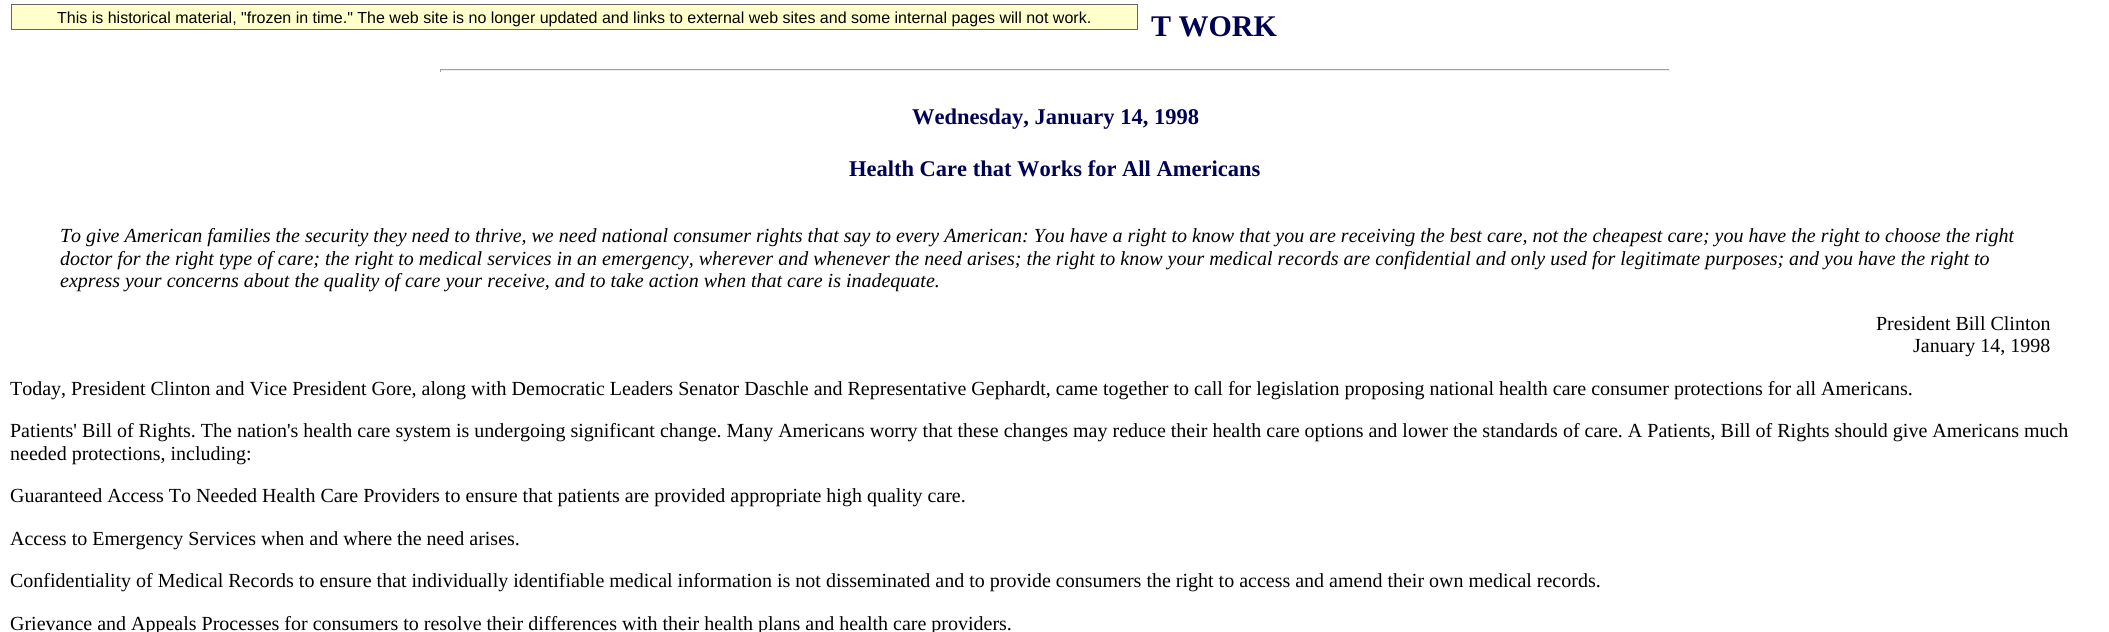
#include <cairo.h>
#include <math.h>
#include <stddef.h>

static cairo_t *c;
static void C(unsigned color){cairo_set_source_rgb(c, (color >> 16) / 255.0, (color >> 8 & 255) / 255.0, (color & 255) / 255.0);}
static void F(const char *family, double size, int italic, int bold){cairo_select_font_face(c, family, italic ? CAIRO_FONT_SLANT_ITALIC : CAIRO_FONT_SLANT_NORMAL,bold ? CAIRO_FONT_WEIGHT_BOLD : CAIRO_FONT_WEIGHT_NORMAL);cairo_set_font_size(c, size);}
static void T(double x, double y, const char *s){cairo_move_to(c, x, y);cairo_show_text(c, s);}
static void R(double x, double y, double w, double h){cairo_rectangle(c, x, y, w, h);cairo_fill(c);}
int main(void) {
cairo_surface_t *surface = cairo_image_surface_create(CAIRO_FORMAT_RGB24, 2109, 632);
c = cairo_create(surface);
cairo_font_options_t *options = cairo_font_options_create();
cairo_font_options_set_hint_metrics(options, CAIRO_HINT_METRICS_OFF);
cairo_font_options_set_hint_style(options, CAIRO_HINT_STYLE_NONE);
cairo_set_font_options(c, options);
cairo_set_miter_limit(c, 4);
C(0xffffff);
cairo_paint(c);
C(0xffffcc);
cairo_rectangle(c,11.5,4.5,1126,25);
cairo_fill_preserve(c);
C(0x666666);
cairo_set_line_width(c,1);
cairo_stroke(c);
F("Liberation Sans",16,0,0);
C(0x000000);
T(57,23,"This is historical material, \"frozen in time.\" The web site is no longer updated and links to external web sites and some internal pages will not work.");
F("Liberation Serif",30,0,1);
C(0x000055);
T(1151,36,"T WORK");
C(0x9f9f9f);
R(440,69,1230,1);
C(0xeeeeee);
R(1669,69,1,3);
R(440,70,1230,1);
C(0x9f9f9f);
R(440,69,1,3);
F("Liberation Serif",22.5,0,1);
C(0x000055);
T(912,124,"Wednesday, January 14, 1998");
T(849,176,"Health Care that Works for All Americans");
F("Liberation Serif",20,1,0);
C(0x000000);
T(60,242,"To give American families the security they need to thrive, we need national consumer rights that say to every American: You have a right to know that you are receiving the best care, not the cheapest care; you have the right to choose the right");
T(60,265,"doctor for the right type of care; the right to medical services in an emergency, wherever and whenever the need arises; the right to know your medical records are confidential and only used for legitimate purposes; and you have the right to");
T(60,287,"express your concerns about the quality of care your receive, and to take action when that care is inadequate.");
F("Liberation Serif",20,0,0);
T(1876,330,"President Bill Clinton");
T(1913,352,"January 14, 1998");
T(10,395,"Today, President Clinton and Vice President Gore, along with Democratic Leaders Senator Daschle and Representative Gephardt, came together to call for legislation proposing national health care consumer protections for all Americans.");
T(10,437,"Patients' Bill of Rights. The nation's health care system is undergoing significant change. Many Americans worry that these changes may reduce their health care options and lower the standards of care. A Patients, Bill of Rights should give Americans much");
T(10,460,"needed protections, including:");
T(10,502,"Guaranteed Access To Needed Health Care Providers to ensure that patients are provided appropriate high quality care.");
T(10,545,"Access to Emergency Services when and where the need arises.");
T(10,587,"Confidentiality of Medical Records to ensure that individually identifiable medical information is not disseminated and to provide consumers the right to access and amend their own medical records.");
T(10,630,"Grievance and Appeals Processes for consumers to resolve their differences with their health plans and health care providers.");
cairo_surface_write_to_png(surface, "o.png");
cairo_font_options_destroy(options);
cairo_destroy(c);
cairo_surface_destroy(surface);
return 0;
}
